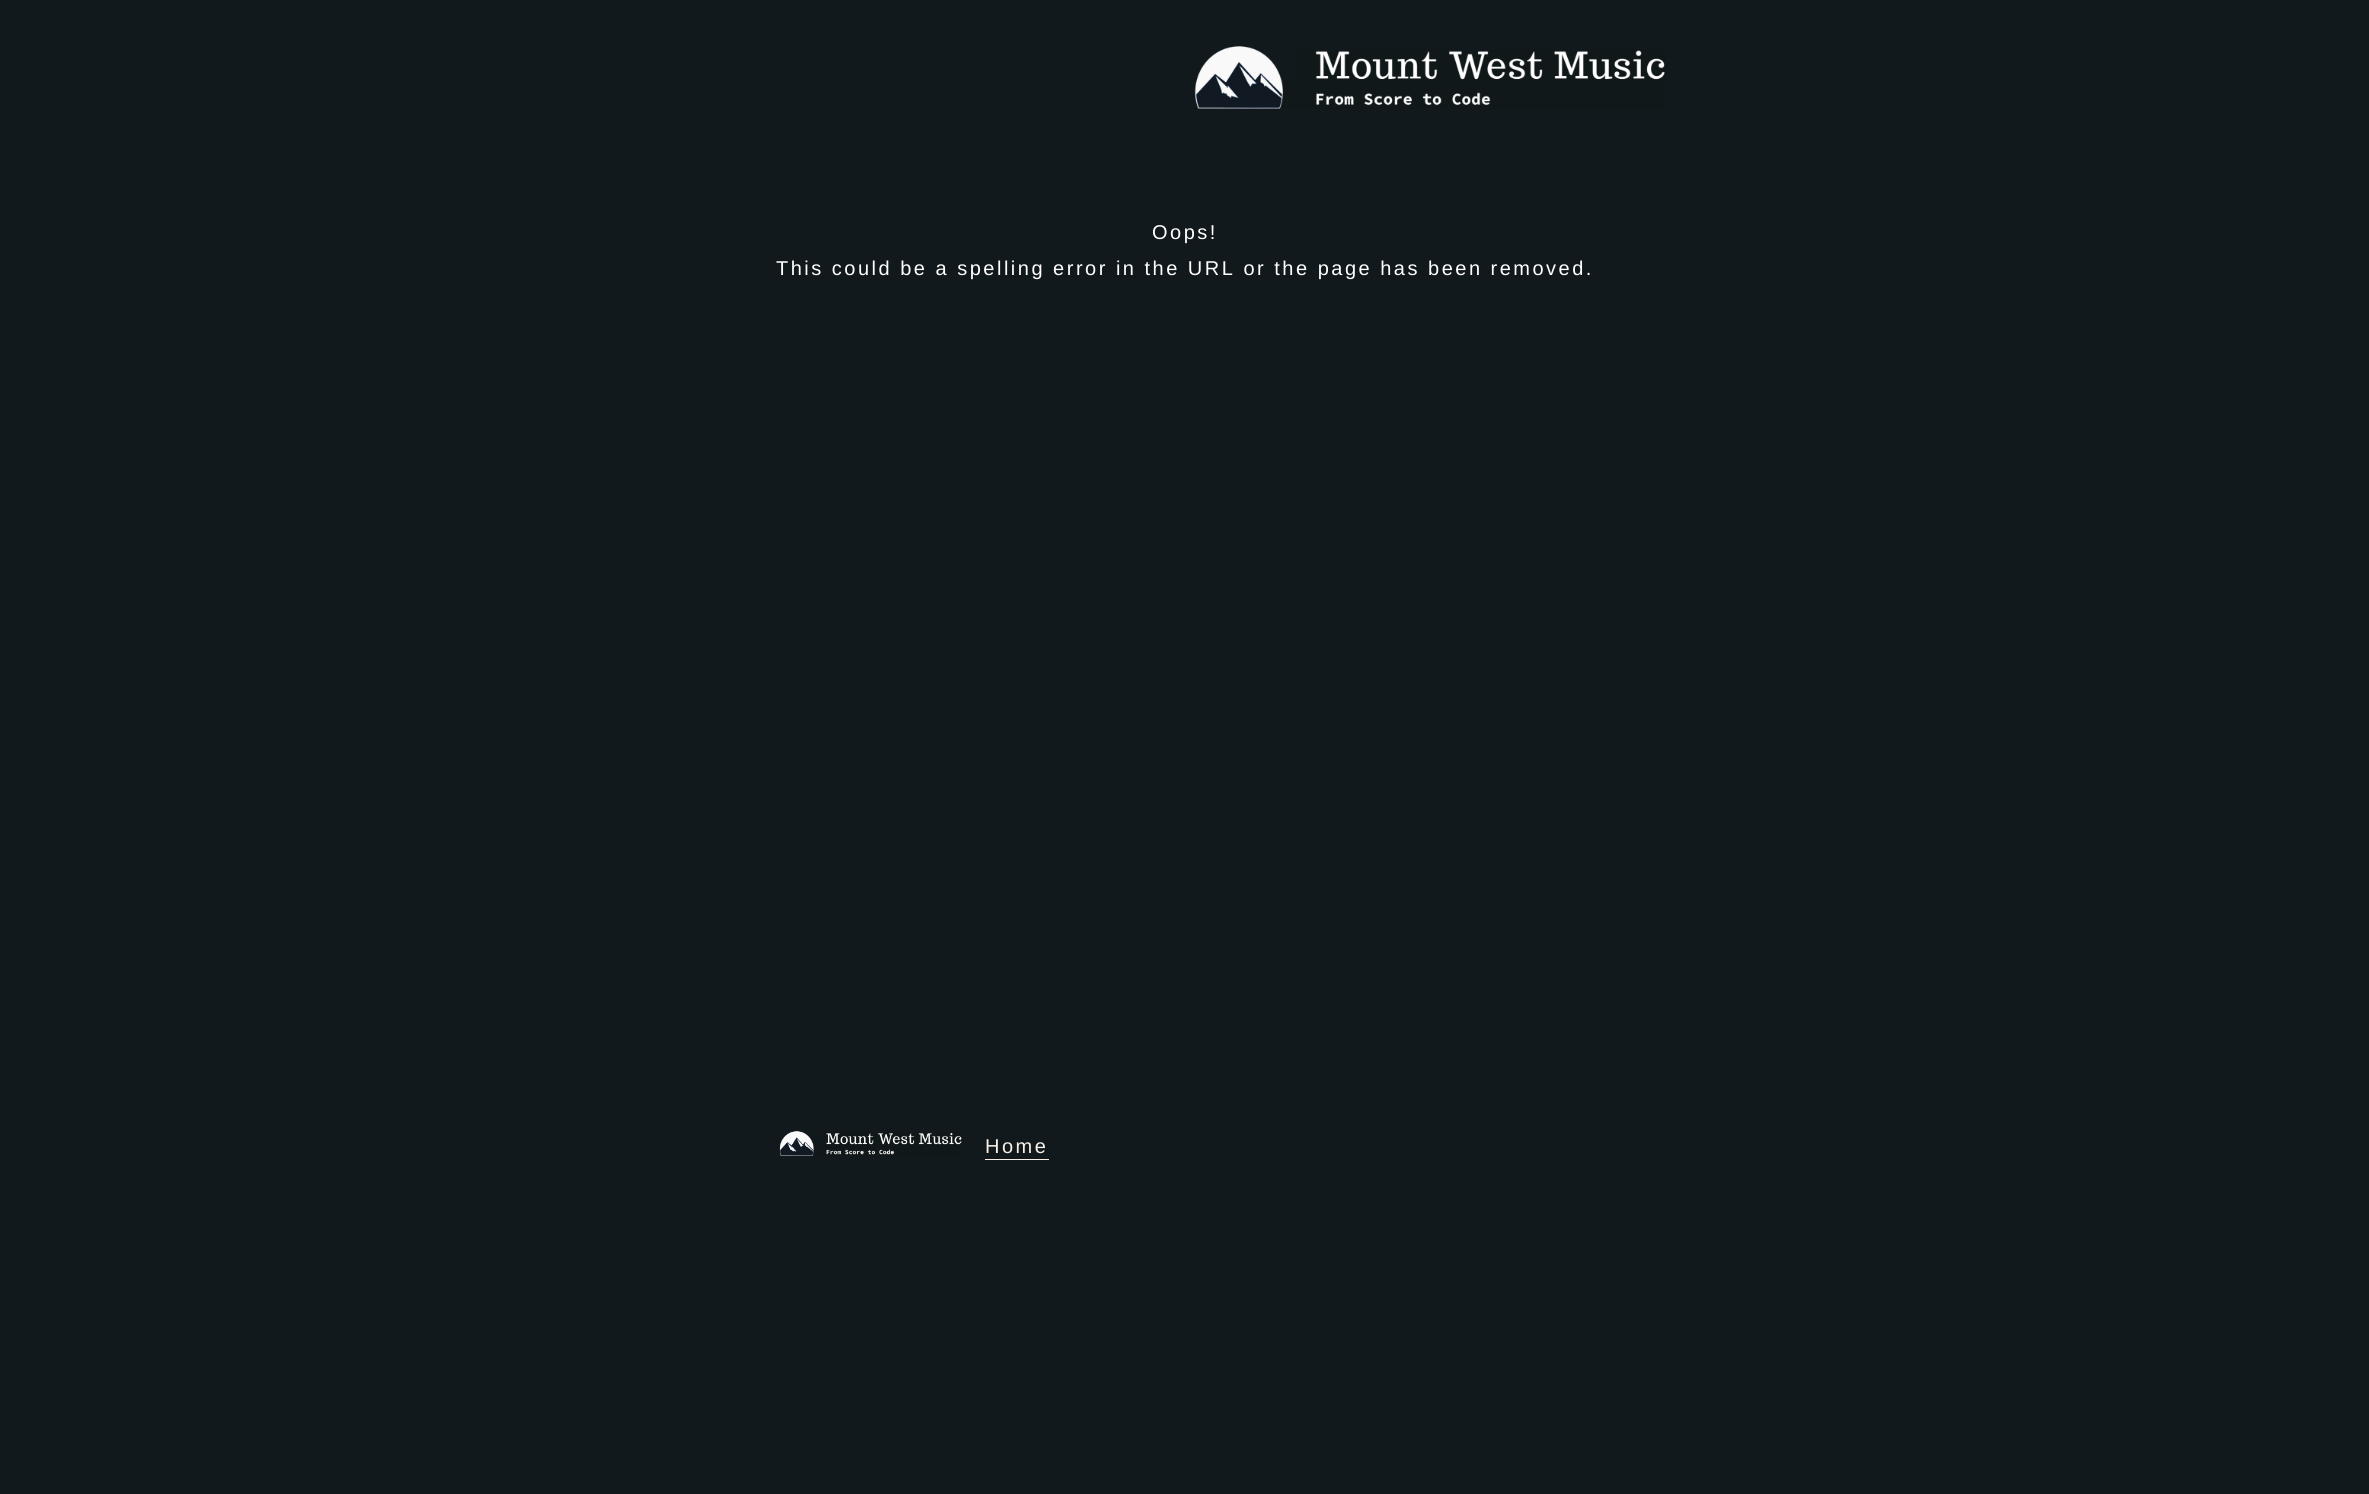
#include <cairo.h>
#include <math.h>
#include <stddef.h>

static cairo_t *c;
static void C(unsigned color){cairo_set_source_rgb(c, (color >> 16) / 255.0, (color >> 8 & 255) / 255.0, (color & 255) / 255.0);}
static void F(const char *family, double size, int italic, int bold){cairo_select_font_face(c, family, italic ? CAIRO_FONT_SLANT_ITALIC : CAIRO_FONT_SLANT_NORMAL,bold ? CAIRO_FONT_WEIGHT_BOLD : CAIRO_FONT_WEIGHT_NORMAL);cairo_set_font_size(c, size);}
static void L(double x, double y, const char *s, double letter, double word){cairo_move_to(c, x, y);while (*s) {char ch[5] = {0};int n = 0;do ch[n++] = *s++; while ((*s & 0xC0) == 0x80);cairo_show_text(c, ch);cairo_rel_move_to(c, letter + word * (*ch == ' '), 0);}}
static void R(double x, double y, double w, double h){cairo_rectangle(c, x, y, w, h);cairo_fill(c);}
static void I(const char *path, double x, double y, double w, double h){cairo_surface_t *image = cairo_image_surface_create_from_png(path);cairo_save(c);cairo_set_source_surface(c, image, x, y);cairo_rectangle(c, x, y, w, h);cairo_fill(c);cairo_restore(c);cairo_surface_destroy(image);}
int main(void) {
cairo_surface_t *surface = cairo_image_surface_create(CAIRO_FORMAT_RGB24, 2369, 1494);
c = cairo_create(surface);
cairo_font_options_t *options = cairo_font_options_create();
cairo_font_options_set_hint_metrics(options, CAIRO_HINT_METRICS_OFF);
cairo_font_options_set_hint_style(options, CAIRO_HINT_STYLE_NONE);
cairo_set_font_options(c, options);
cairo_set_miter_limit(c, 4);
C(0x11191c);
cairo_paint(c);
I("1.png",1194,46,471,63);
F("Liberation Sans",20,0,0);
C(0xffffff);
L(1152,239,"Oops!",2.5,0);
L(776,275,"This could be a spelling error in the URL or the page has been removed.",2.5,0);
I("2.png",779,1131,183,25);
C(0xfaf0e6);
L(985,1153,"Home",2.5,0);
R(985,1159,64,1);
cairo_surface_write_to_png(surface, "o.png");
cairo_font_options_destroy(options);
cairo_destroy(c);
cairo_surface_destroy(surface);
return 0;
}
